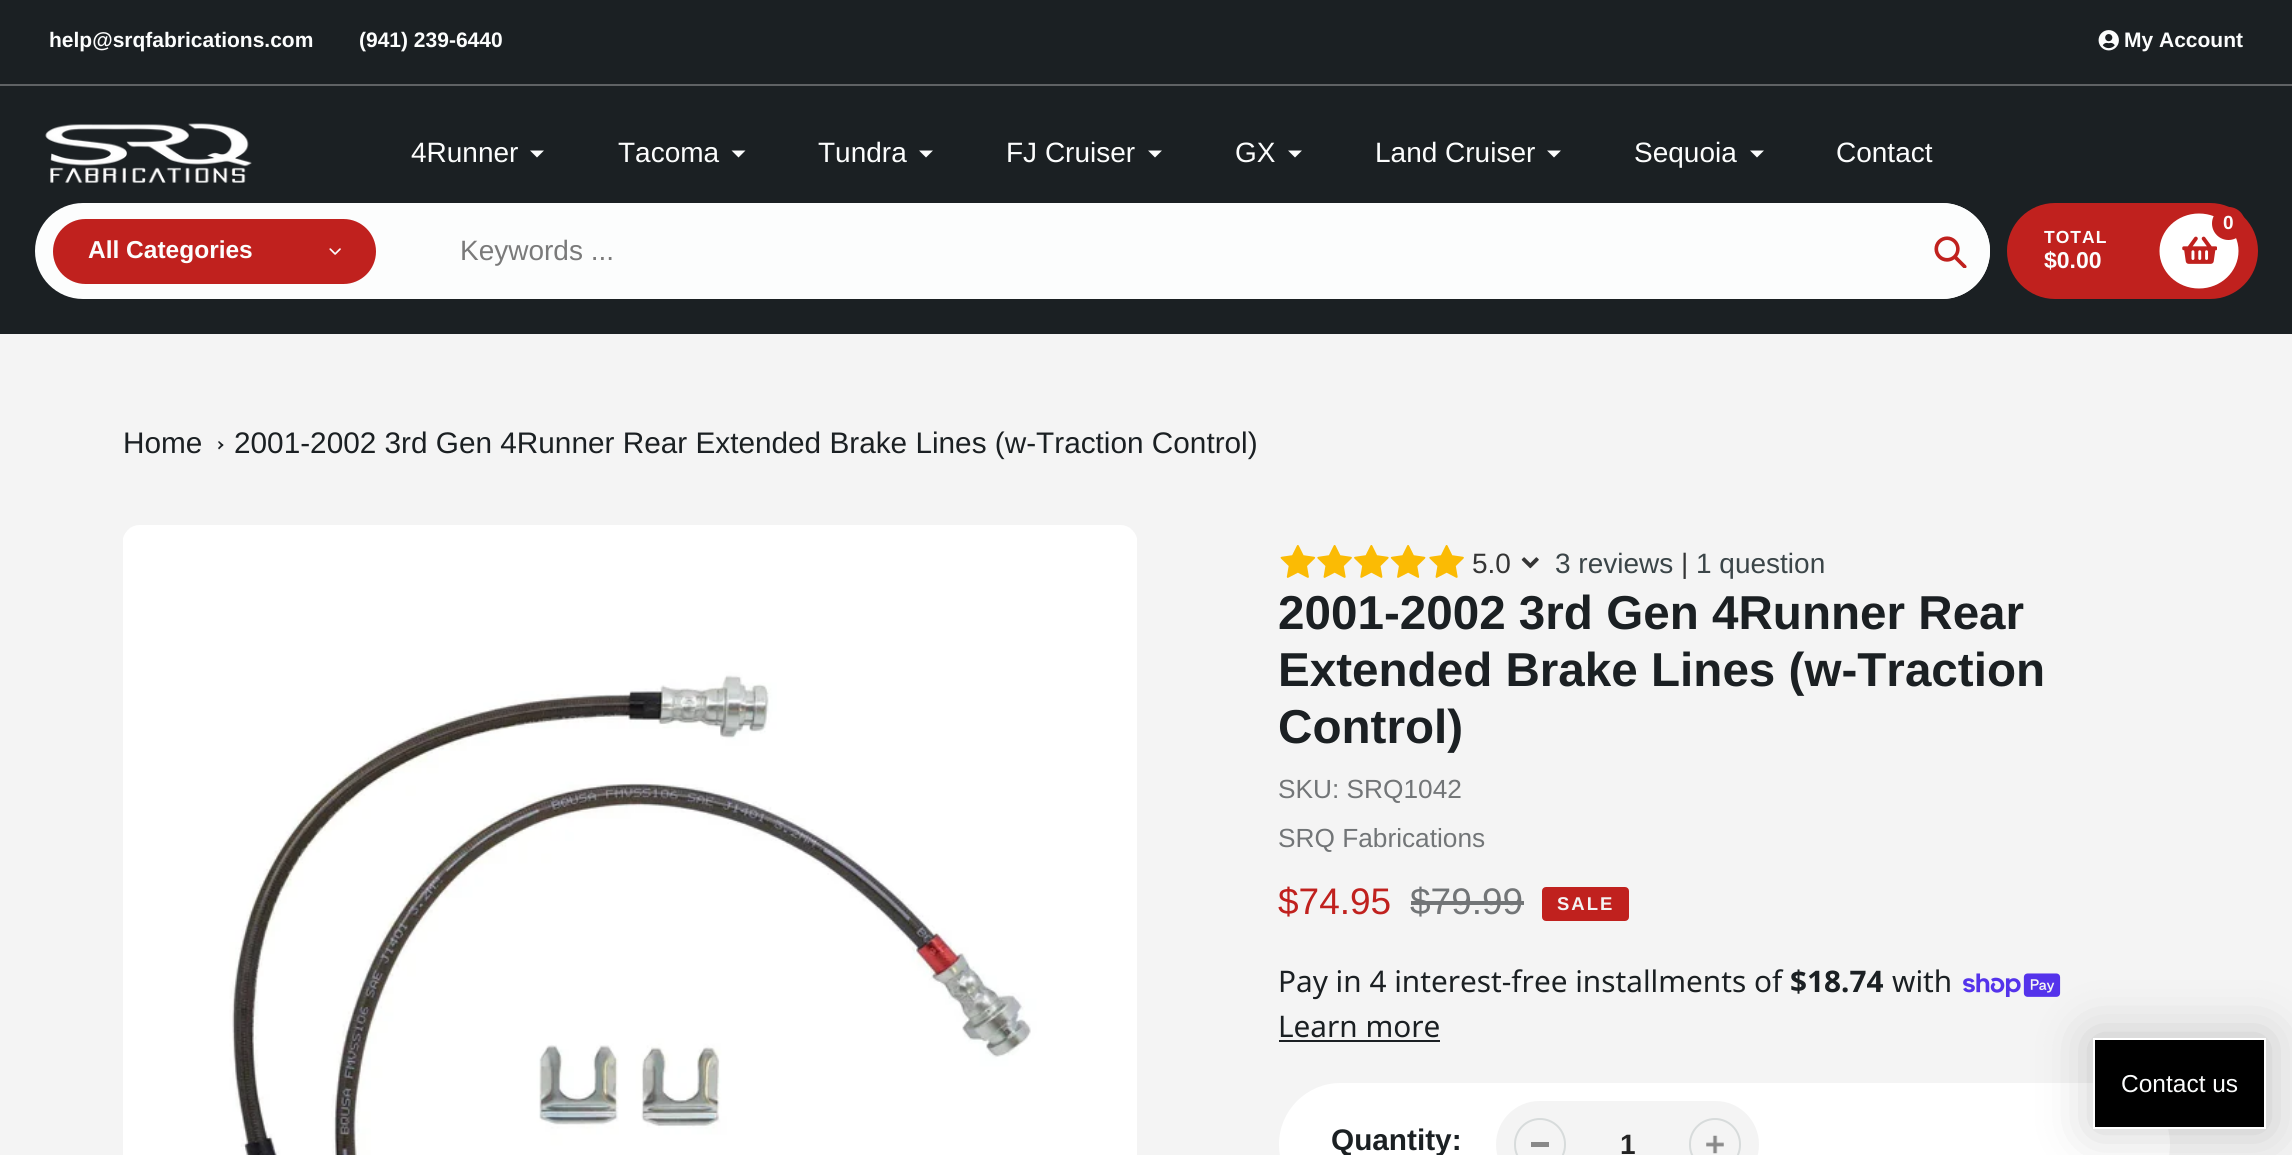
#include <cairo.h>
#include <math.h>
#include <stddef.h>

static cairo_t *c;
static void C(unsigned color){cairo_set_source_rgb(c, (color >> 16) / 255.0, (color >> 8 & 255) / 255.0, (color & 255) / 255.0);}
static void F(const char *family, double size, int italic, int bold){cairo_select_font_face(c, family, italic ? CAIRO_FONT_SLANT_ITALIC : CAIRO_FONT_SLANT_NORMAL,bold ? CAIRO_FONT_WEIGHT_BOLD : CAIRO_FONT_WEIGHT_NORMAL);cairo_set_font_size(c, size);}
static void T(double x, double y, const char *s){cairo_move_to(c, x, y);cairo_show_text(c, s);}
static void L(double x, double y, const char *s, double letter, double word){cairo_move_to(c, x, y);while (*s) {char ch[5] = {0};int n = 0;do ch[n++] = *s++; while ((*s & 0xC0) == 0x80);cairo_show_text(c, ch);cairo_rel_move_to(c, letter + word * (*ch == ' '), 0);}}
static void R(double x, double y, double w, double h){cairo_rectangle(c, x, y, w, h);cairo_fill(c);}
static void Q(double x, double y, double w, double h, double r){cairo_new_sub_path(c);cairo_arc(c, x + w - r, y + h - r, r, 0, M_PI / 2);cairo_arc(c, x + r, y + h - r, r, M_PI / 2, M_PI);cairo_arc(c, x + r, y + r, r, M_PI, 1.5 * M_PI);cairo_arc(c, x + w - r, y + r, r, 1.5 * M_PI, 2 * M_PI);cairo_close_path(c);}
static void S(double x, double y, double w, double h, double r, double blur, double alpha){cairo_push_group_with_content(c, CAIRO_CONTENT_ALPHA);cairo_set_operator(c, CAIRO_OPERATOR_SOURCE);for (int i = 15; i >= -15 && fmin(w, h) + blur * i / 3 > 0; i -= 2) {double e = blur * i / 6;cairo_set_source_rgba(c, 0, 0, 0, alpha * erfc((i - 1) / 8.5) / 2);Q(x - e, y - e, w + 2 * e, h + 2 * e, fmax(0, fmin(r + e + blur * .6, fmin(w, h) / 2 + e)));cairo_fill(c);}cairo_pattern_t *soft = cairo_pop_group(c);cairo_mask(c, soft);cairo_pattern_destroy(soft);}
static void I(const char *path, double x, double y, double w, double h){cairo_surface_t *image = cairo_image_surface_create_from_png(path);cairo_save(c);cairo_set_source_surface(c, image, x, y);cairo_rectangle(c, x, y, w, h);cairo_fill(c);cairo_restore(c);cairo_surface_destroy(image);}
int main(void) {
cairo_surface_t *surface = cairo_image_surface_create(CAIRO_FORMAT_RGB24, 2292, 1155);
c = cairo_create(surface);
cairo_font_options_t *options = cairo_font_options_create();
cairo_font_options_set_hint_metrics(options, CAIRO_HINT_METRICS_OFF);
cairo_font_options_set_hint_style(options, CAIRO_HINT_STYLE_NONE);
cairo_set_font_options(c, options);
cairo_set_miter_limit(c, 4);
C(0xf4f4f4);
cairo_paint(c);
C(0x1b2023);
R(0,0,2292,334);
C(0x5f6264);
R(0,84,2292,2);
F("Liberation Sans",21,0,1);
C(0xfcfdfd);
T(49,47,"help@srqfabrications.com");
T(359,47,"(941) 239-6440");
I("1.png",2098,30,21,21);
T(2124,47,"My Account");
I("2.png",45,123,207,60);
F("Liberation Sans",28,0,0);
T(411,162,"4Runner");
cairo_new_path(c);
cairo_move_to(c,544,150.5);
cairo_line_to(c,537,157.5);
cairo_line_to(c,530,150.5);
cairo_fill(c);
T(618,162,"Tacoma");
cairo_new_path(c);
cairo_move_to(c,745.5,150.5);
cairo_line_to(c,738.5,157.5);
cairo_line_to(c,731.5,150.5);
cairo_fill(c);
T(818,162,"Tundra");
cairo_new_path(c);
cairo_move_to(c,933,150.5);
cairo_line_to(c,926,157.5);
cairo_line_to(c,919,150.5);
cairo_fill(c);
T(1006,162,"FJ Cruiser");
cairo_new_path(c);
cairo_move_to(c,1162,150.5);
cairo_line_to(c,1155,157.5);
cairo_line_to(c,1148,150.5);
cairo_fill(c);
T(1235,162,"GX");
cairo_new_path(c);
cairo_move_to(c,1302,150.5);
cairo_line_to(c,1295,157.5);
cairo_line_to(c,1288,150.5);
cairo_fill(c);
T(1375,162,"Land Cruiser");
cairo_new_path(c);
cairo_move_to(c,1561,150.5);
cairo_line_to(c,1554,157.5);
cairo_line_to(c,1547,150.5);
cairo_fill(c);
T(1634,162,"Sequoia");
cairo_new_path(c);
cairo_move_to(c,1764,150.5);
cairo_line_to(c,1757,157.5);
cairo_line_to(c,1750,150.5);
cairo_fill(c);
T(1836,162,"Contact");
Q(35,203,1955,96,48);
cairo_fill(c);
C(0xc0211e);
Q(53,219,323,65,32.5);
cairo_fill(c);
F("Liberation Sans",24.5,0,1);
C(0xfcfdfd);
T(88,258,"All Categories");
I("3.png",329,248,12,7);
Q(411,203,1579,96,48);
cairo_fill(c);
F("Liberation Sans",28,0,0);
C(0x7a7a7a);
T(460,260,"Keywords ...");
I("4.png",1934,236,33,32);
C(0xc0211e);
Q(2007,203,251,96,48);
cairo_fill(c);
C(0xffffff);
cairo_new_path(c);
cairo_move_to(c,2199,213.5);
cairo_curve_to(c,2221,213.5,2238.5,230.5,2238.5,251);
cairo_curve_to(c,2238.5,271.5,2221,288.5,2199,288.5);
cairo_curve_to(c,2177,288.5,2159.5,271.5,2159.5,251);
cairo_curve_to(c,2159.5,230.5,2177,213.5,2199,213.5);
cairo_close_path(c);
cairo_fill(c);
I("5.png",2182,236,35,28);
C(0xc0211e);
cairo_arc(c,2228.5,223.5,16.5,0,2 * M_PI);
cairo_fill(c);
F("Liberation Sans",19,0,1);
C(0xfcfdfd);
T(2223,229,"0");
F("Liberation Sans",17.5,0,1);
L(2044,243,"TOTAL",1,0);
F("Liberation Sans",23,0,1);
T(2044,268,"$0.00");
F("Liberation Sans",29.75,0,0);
C(0x1b2023);
T(123,453,"Home");
cairo_new_path(c);
cairo_move_to(c,219,441);
cairo_line_to(c,223.5,445);
cairo_line_to(c,222,446.5);
cairo_line_to(c,218,442);
cairo_close_path(c);
cairo_fill(c);
cairo_new_path(c);
cairo_move_to(c,222,444);
cairo_line_to(c,223.5,445);
cairo_line_to(c,219,449.5);
cairo_line_to(c,218,448);
cairo_close_path(c);
cairo_fill(c);
T(234,453,"2001-2002 3rd Gen 4Runner Rear Extended Brake Lines (w-Traction Control)");
I("6.png",123,525,1014,630);
I("7.png",1280,545,36,33);
I("8.png",1317,545,35,33);
I("9.png",1354,545,35,33);
I("10.png",1390,545,36,33);
I("8.png",1429,545,35,33);
F("Liberation Sans",28,0,0);
C(0x353535);
T(1472,573,"5.0");
I("11.png",1521,557,18,12);
C(0x3b4548);
T(1555,573,"3 reviews");
C(0x353535);
T(1681,573,"|");
C(0x3b4548);
T(1696,573,"1 question");
F("Liberation Sans",47.6,0,1);
C(0x1b2023);
T(1278,629,"2001-2002 3rd Gen 4Runner Rear");
T(1278,686,"Extended Brake Lines (w-Traction");
T(1278,743,"Control)");
F("Liberation Sans",26.25,0,0);
C(0x727577);
T(1278,798,"SKU: SRQ1042");
T(1278,847,"SRQ Fabrications");
F("Liberation Sans",37,0,0);
C(0xc0211e);
T(1278,914,"$74.95");
C(0x727577);
T(1410,914,"$79.99");
R(1411,901,113,4);
C(0xc0211e);
Q(1543,888,85,32,3);
cairo_fill_preserve(c);
cairo_stroke(c);
F("Liberation Sans",18.5,0,1);
C(0xf4f4f4);
L(1557,910,"SALE",2,0);
F("Noto Sans",29.75,0,0);
C(0x1b2023);
T(1278,992,"Pay in 4 interest-free installments of");
F("Noto Sans",29.75,0,1);
T(1790,992,"$18.74");
F("Noto Sans",29.75,0,0);
T(1892,992,"with");
I("12.png",1963,973,98,24);
T(1278,1037,"Learn more");
R(1279,1040,161,2);
C(0xffffff);
Q(1279,1083,891,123,61.5);
cairo_fill(c);
F("Liberation Sans",29.75,0,1);
C(0x1b2023);
T(1331,1150,"Quantity:");
C(0xf4f4f4);
Q(1496,1101,263,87,43.5);
cairo_fill(c);
C(0x898989);
R(1531,1142,18,5);
Q(1515,1119,50,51,25);
C(0xd7dbdb);
cairo_stroke(c);
F("Liberation Sans",28,0,1);
C(0x232323);
T(1620,1154,"1");
I("13.png",1706,1135,18,19);
Q(1690,1119,50,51,25);
C(0xd7dbdb);
cairo_stroke(c);
C(0x000000);
S(2091,1036,177,95,0,26,.2);
C(0x000000);
cairo_rectangle(c,2094,1039,171,89);
cairo_fill_preserve(c);
C(0xffffff);
cairo_stroke(c);
F("Liberation Sans",24.5,0,0);
C(0xfcfdfd);
T(2121,1092,"Contact us");
cairo_surface_write_to_png(surface, "o.png");
cairo_font_options_destroy(options);
cairo_destroy(c);
cairo_surface_destroy(surface);
return 0;
}
